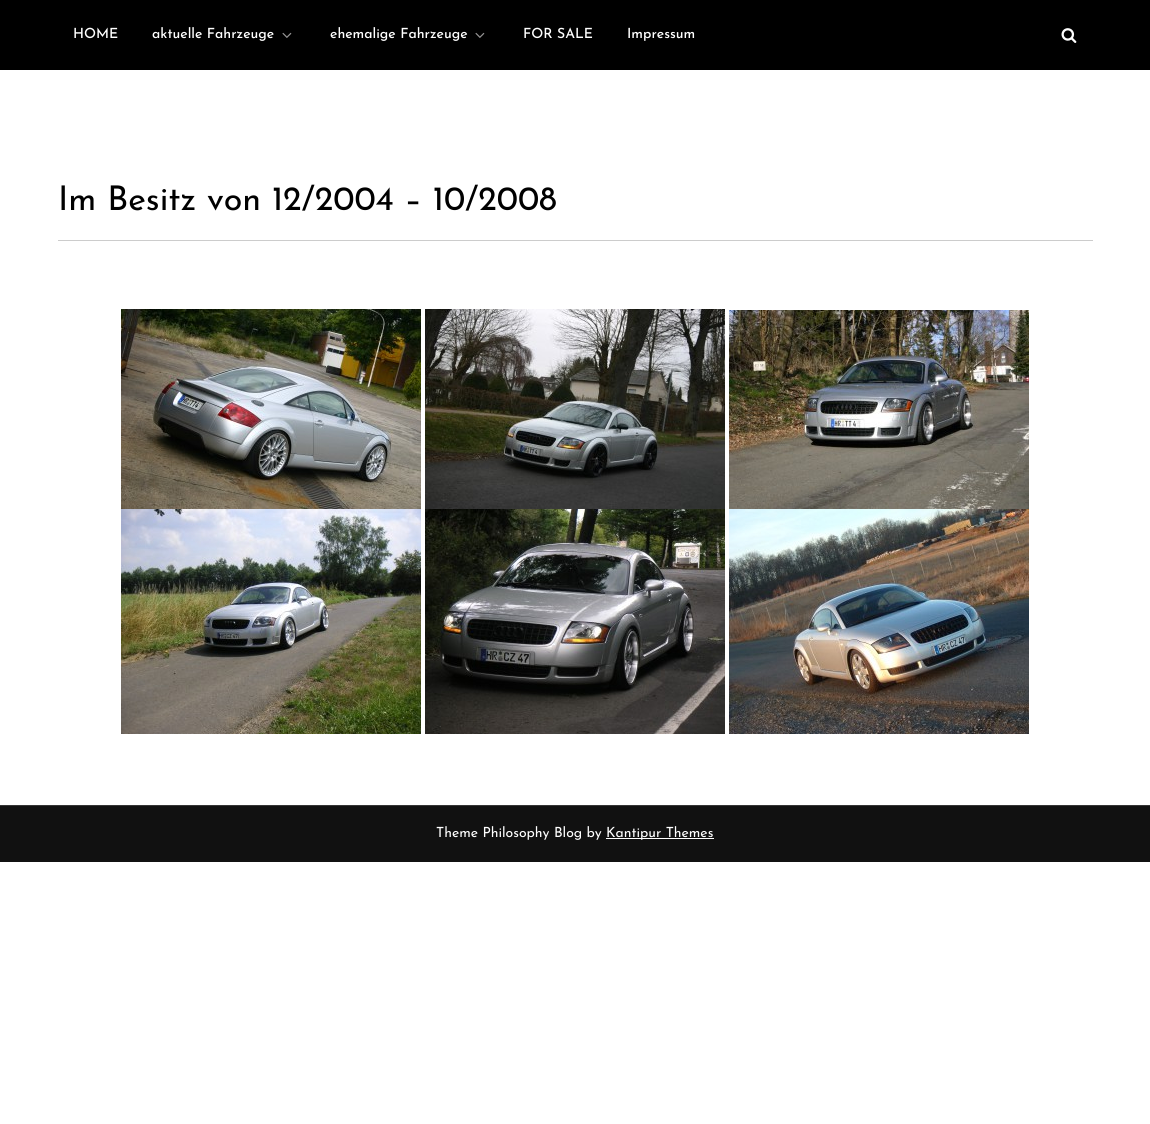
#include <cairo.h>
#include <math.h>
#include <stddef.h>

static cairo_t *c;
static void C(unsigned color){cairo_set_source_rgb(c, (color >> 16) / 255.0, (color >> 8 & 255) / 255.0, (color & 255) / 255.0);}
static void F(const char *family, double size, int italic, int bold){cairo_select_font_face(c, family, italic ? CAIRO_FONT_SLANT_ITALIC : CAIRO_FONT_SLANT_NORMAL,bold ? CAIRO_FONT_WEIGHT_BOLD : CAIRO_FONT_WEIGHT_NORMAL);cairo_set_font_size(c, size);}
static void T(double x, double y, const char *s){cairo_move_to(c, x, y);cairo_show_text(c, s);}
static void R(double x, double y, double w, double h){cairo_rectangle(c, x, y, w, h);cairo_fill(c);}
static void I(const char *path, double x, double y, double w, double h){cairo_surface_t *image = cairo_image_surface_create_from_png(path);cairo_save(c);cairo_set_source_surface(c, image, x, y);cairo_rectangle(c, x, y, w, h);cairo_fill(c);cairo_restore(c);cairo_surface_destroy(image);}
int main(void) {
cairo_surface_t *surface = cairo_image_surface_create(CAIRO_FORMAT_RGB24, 1150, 1124);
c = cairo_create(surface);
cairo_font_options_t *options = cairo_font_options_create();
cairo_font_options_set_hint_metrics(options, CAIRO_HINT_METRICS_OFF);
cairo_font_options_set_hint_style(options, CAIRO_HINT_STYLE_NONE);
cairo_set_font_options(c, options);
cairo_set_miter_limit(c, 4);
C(0xffffff);
cairo_paint(c);
C(0x000000);
R(0,0,1150,70);
F("Josefin Sans Medium",14,0,0);
C(0xffffff);
T(73,38,"HOME");
T(152,38,"aktuelle Fahrzeuge");
I("1.png",282,32,10,6);
T(330,38,"ehemalige Fahrzeuge");
I("1.png",475,32,10,6);
T(523,38,"FOR SALE");
T(627,38,"Impressum");
I("2.png",1061,28,16,15);
F("Josefin Sans",34,0,0);
C(0x000000);
T(58,210,"Im Besitz von 12/2004 – 10/2008");
C(0xcccccc);
R(58,240,1035,1);
I("3.png",121,309,300,200);
I("4.png",425,309,300,200);
I("5.png",729,310,300,199);
I("6.png",121,509,300,225);
I("7.png",425,509,300,225);
I("8.png",729,509,300,225);
C(0x111111);
R(0,806,1150,56);
C(0x353535);
R(0,805,1150,1);
F("Josefin Sans",14,0,0);
C(0xffffff);
T(436,837,"Theme Philosophy Blog by");
R(606,838,108,1);
T(606,837,"Kantipur Themes");
cairo_surface_write_to_png(surface, "o.png");
cairo_font_options_destroy(options);
cairo_destroy(c);
cairo_surface_destroy(surface);
return 0;
}
